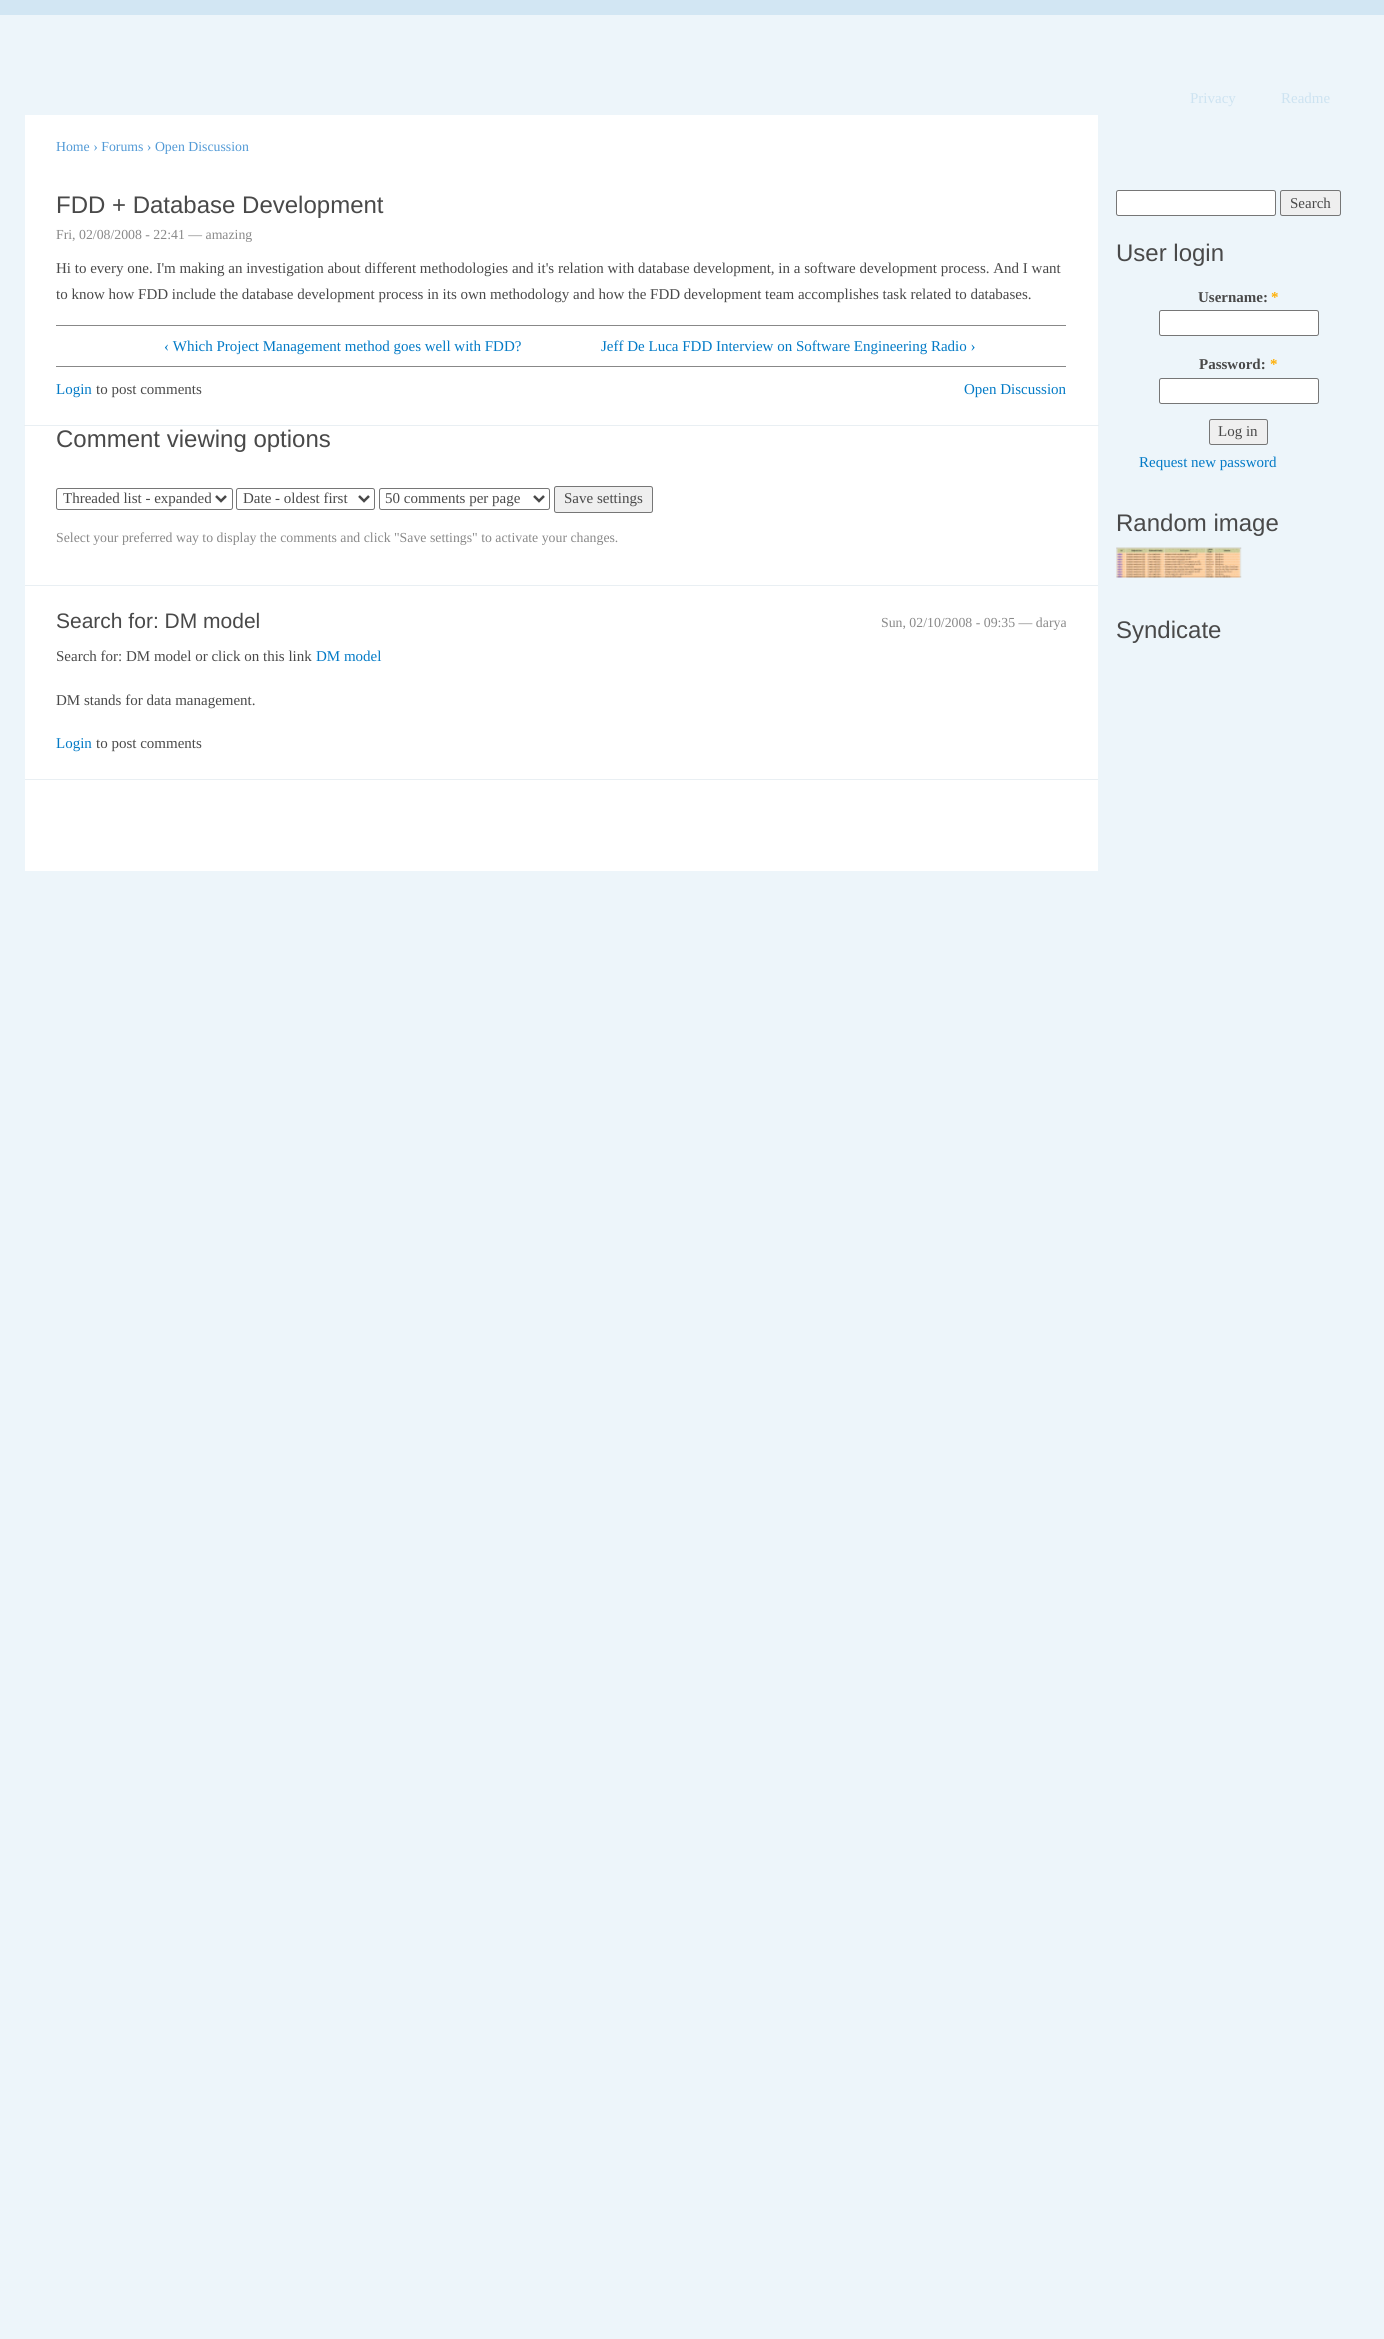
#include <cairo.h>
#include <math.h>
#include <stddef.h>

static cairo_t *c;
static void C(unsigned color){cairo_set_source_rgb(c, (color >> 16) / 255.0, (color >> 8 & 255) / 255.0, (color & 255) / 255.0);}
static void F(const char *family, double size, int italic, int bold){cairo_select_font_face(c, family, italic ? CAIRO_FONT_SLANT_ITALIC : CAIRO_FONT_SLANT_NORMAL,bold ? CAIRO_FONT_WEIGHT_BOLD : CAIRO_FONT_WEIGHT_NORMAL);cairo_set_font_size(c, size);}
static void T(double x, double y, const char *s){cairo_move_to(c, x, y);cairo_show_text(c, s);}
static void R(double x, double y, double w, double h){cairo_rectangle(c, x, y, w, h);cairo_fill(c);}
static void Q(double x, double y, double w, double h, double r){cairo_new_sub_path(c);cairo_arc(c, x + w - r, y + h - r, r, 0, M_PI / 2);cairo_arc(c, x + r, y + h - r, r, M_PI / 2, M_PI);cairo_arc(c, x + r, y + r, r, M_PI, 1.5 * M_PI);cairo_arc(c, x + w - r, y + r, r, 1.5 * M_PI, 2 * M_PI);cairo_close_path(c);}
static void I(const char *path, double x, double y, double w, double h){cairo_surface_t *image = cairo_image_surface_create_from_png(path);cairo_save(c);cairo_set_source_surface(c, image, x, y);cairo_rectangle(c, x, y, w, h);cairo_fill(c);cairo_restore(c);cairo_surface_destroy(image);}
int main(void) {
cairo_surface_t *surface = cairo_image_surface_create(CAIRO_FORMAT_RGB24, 1384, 2339);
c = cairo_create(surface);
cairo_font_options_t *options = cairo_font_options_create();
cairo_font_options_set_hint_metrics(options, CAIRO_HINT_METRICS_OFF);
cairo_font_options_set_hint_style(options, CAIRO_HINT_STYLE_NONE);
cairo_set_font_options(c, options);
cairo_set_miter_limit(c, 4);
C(0xedf5fa);
cairo_paint(c);
C(0xd2e6f3);
R(0,0,1384,15);
F("Liberation Serif",15,0,0);
C(0xcde3f1);
T(1190,103,"Privacy");
T(1281,103,"Readme");
C(0xffffff);
R(25,115,1073,756);
F("Liberation Serif",13.8,0,0);
C(0x529ad6);
T(56,151,"Home › Forums › Open Discussion");
F("Liberation Sans",24,0,0);
C(0x494949);
T(56,213,"FDD + Database Development");
C(0xe9eff3);
R(24,425,1075,1);
F("Liberation Serif",13.8,0,0);
C(0x898989);
T(56,239,"Fri, 02/08/2008 - 22:41 — amazing");
F("Liberation Serif",15,0,0);
C(0x494949);
T(56,273,"Hi to every one. I'm making an investigation about different methodologies and it's relation with database development, in a software development process. And I want");
T(56,299,"to know how FDD include the database development process in its own methodology and how the FDD development team accomplishes task related to databases.");
C(0x888888);
R(56,325,1010,1);
R(56,366,1010,1);
C(0x027ac6);
T(164,351,"‹ Which Project Management method goes well with FDD?");
T(601,351,"Jeff De Luca FDD Interview on Software Engineering Radio ›");
T(56,394,"Login");
C(0x494949);
T(96,394,"to post comments");
C(0x027ac6);
T(964,394,"Open Discussion");
C(0xe9eff3);
R(25,779,1073,1);
F("Liberation Sans",24,0,0);
C(0x494949);
T(56,447,"Comment viewing options");
Q(56.5,488.5,176,21,2);
C(0x767676);
cairo_set_line_width(c,1);
cairo_stroke(c);
cairo_new_path(c);
cairo_move_to(c,216,496);
cairo_line_to(c,221,501);
cairo_line_to(c,226,496);
C(0x494949);
cairo_set_line_width(c,2.5);
cairo_stroke(c);
cairo_save(c);
cairo_rectangle(c,63,489,148,20);
cairo_clip(c);
F("Liberation Serif",15,0,0);
T(63,503,"Threaded list - expanded");
cairo_restore(c);
Q(236.5,488.5,138,21,2);
C(0x767676);
cairo_set_line_width(c,1);
cairo_stroke(c);
cairo_new_path(c);
cairo_move_to(c,359,496);
cairo_line_to(c,364,501);
cairo_line_to(c,369,496);
C(0x494949);
cairo_set_line_width(c,2.5);
cairo_stroke(c);
F("Liberation Serif",15,0,0);
T(243,503,"Date - oldest first");
Q(379.5,488.5,170,21,2);
C(0x767676);
cairo_set_line_width(c,1);
cairo_stroke(c);
cairo_new_path(c);
cairo_move_to(c,534,496);
cairo_line_to(c,539,501);
cairo_line_to(c,544,496);
C(0x494949);
cairo_set_line_width(c,2.5);
cairo_stroke(c);
T(385,503,"50 comments per page");
C(0xefefef);
Q(554.5,486.5,98,26,2);
cairo_fill_preserve(c);
C(0x767676);
cairo_set_line_width(c,1);
cairo_stroke(c);
C(0x494949);
T(564,503,"Save settings");
F("Liberation Serif",13.8,0,0);
C(0x898989);
T(56,542,"Select your preferred way to display the comments and click \"Save settings\" to activate your changes.");
C(0xe9eff3);
R(25,585,1073,1);
F("Liberation Sans",21,0,0);
C(0x494949);
T(56,628,"Search for: DM model");
F("Liberation Serif",13.8,0,0);
C(0x898989);
T(881,627,"Sun, 02/10/2008 - 09:35 — darya");
F("Liberation Serif",15,0,0);
C(0x494949);
T(56,661,"Search for: DM model or click on this link");
C(0x027ac6);
T(316,661,"DM model");
C(0x494949);
T(56,705,"DM stands for data management.");
C(0x027ac6);
T(56,748,"Login");
C(0x494949);
T(96,748,"to post comments");
C(0xffffff);
Q(1116.5,190.5,159,25,2);
cairo_fill_preserve(c);
C(0x767676);
cairo_stroke(c);
C(0xefefef);
Q(1280.5,190.5,60,25,2);
cairo_fill_preserve(c);
C(0x767676);
cairo_stroke(c);
C(0x494949);
T(1290,208,"Search");
F("Liberation Sans",24,0,0);
T(1116,261,"User login");
F("Liberation Serif",15,0,1);
T(1198,302,"Username:");
C(0xffae00);
T(1271,302,"*");
C(0xffffff);
Q(1159.5,310.5,159,25,2);
cairo_fill_preserve(c);
C(0x767676);
cairo_stroke(c);
C(0x494949);
T(1199,369,"Password:");
C(0xffae00);
T(1270,369,"*");
C(0xffffff);
Q(1159.5,378.5,159,25,2);
cairo_fill_preserve(c);
C(0x767676);
cairo_stroke(c);
C(0xefefef);
Q(1209.5,419.5,58,25,2);
cairo_fill_preserve(c);
C(0x767676);
cairo_stroke(c);
F("Liberation Serif",15,0,0);
C(0x494949);
T(1218,436,"Log in");
C(0x027ac6);
T(1139,467,"Request new password");
F("Liberation Sans",24,0,0);
C(0x494949);
T(1116,531,"Random image");
I("1.png",1116,547,126,31);
T(1116,638,"Syndicate");
cairo_surface_write_to_png(surface, "o.png");
cairo_font_options_destroy(options);
cairo_destroy(c);
cairo_surface_destroy(surface);
return 0;
}
